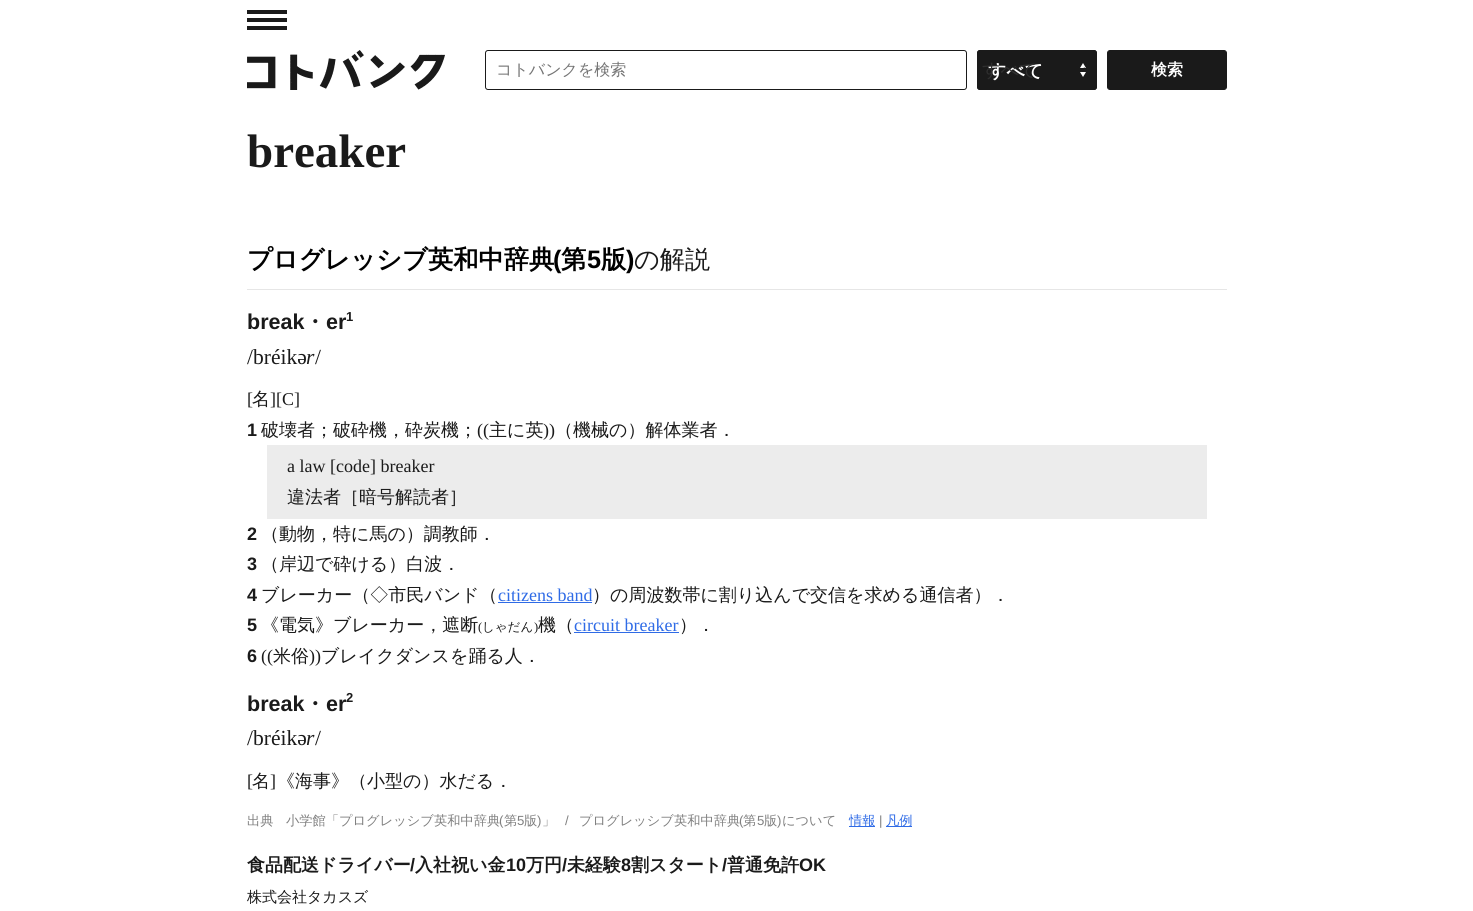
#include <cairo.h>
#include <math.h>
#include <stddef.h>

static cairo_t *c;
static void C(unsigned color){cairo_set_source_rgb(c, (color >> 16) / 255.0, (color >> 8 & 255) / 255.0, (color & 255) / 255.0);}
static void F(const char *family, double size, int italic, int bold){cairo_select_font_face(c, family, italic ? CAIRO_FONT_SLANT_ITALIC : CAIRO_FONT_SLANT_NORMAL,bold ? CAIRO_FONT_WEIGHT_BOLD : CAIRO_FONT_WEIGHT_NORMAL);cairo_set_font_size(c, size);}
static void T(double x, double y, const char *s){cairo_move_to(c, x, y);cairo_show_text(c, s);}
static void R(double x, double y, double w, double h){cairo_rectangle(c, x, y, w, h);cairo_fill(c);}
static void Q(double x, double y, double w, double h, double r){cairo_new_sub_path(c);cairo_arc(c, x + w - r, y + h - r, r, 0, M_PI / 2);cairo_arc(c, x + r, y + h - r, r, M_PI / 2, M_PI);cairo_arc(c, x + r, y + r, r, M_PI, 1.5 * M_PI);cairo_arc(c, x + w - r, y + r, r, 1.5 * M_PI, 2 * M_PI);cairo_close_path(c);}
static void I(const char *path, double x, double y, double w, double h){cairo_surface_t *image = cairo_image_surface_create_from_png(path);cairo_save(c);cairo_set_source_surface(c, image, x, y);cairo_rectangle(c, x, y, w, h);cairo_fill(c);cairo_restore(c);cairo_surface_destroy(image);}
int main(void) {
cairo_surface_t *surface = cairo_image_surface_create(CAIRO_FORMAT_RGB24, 1473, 911);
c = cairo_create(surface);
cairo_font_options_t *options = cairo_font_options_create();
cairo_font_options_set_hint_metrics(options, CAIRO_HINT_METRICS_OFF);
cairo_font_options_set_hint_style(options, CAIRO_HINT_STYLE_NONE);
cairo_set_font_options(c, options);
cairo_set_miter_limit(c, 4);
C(0xffffff);
cairo_paint(c);
I("1.png",247,10,40,20);
I("2.png",247,50,198,40);
Q(485.5,50.5,481,39,2.5);
C(0x1a1a1a);
cairo_set_line_width(c,1);
cairo_stroke(c);
F("WenQuanYi Zen Hei Medium",16,0,0);
C(0x757575);
T(496,75,"コトバンクを検索");
C(0x1a1a1a);
Q(977,50,120,40,3);
cairo_fill(c);
I("3.png",1080,63,6,14);
Q(977.5,50.5,119,39,2.5);
cairo_stroke(c);
cairo_new_path(c);
cairo_move_to(c,1083.5,68);
cairo_line_to(c,1087.5,72);
cairo_line_to(c,1091.5,68);
cairo_set_line_width(c,2);
cairo_stroke(c);
F("WenQuanYi Zen Hei",18,0,1);
C(0xffffff);
T(988,77,"すべて");
F("WenQuanYi Zen Hei Medium",18,0,0);
C(0x2f2f2f);
T(982,76,"すべて");
C(0x1a1a1a);
Q(1107.5,50.5,119,39,2.5);
cairo_fill_preserve(c);
cairo_set_line_width(c,1);
cairo_stroke(c);
F("WenQuanYi Zen Hei",16,0,1);
C(0xffffff);
T(1151,75,"検索");
F("Liberation Serif",47,0,1);
C(0x1a1a1a);
T(247,167,"breaker");
C(0xe6e6e6);
R(247,289,980,1);
F("WenQuanYi Zen Hei",25.25,0,1);
C(0x000000);
T(247,268,"プログレッシブ英和中辞典");
F("Liberation Sans",25.25,0,1);
T(553,268,"(");
F("WenQuanYi Zen Hei",25.25,0,1);
T(561,268,"第");
F("Liberation Sans",25.25,0,1);
T(587,268,"5");
F("WenQuanYi Zen Hei",25.25,0,1);
T(601,268,"版");
F("Liberation Sans",25.25,0,1);
T(626,268,")");
F("WenQuanYi Zen Hei Medium",25.25,0,0);
C(0x1a1a1a);
T(634,268,"の解説");
F("Liberation Sans",21.5,0,1);
T(247,329,"break");
F("WenQuanYi Zen Hei",21.5,0,1);
T(304,329,"・");
F("Liberation Sans",21.5,0,1);
T(326,329,"er");
F("Liberation Sans",13,0,1);
T(346,321,"1");
F("Liberation Serif",21.5,0,0);
T(247,364,"/bréikə");
F("Liberation Serif",21.5,1,0);
T(306,364,"r");
F("Liberation Serif",21.5,0,0);
T(315,364,"/");
F("Liberation Serif",18,0,0);
T(247,405,"[");
F("WenQuanYi Zen Hei Medium",18,0,0);
T(252,405,"名");
F("Liberation Serif",18,0,0);
T(270,405,"][C]");
F("Liberation Sans",18,0,1);
T(247,436,"1");
F("WenQuanYi Zen Hei Medium",18,0,0);
T(261,436,"破壊者；破砕機，砕炭機；");
F("Liberation Serif",18,0,0);
T(477,436,"((");
F("WenQuanYi Zen Hei Medium",18,0,0);
T(489,436,"主に英");
F("Liberation Serif",18,0,0);
T(543,436,"))");
F("WenQuanYi Zen Hei Medium",18,0,0);
T(555,436,"（機械の）解体業者．");
C(0xececec);
R(267,445,940,74);
F("Liberation Serif",18,0,0);
C(0x1a1a1a);
T(287,472,"a law [code] breaker");
F("WenQuanYi Zen Hei Medium",18,0,0);
T(287,503,"違法者［暗号解読者］");
F("Liberation Sans",18,0,1);
T(247,540,"2");
F("WenQuanYi Zen Hei Medium",18,0,0);
T(261,540,"（動物，特に馬の）調教師．");
F("Liberation Sans",18,0,1);
T(247,570,"3");
F("WenQuanYi Zen Hei Medium",18,0,0);
T(261,570,"（岸辺で砕ける）白波．");
cairo_save(c);
cairo_rectangle(c,247,0,980,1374);
cairo_clip(c);
F("Liberation Sans",18,0,1);
T(247,601,"4");
cairo_restore(c);
T(261,601,"ブレーカー（◇市民バンド（");
F("Liberation Serif",18,0,0);
C(0x2f6be6);
T(498,601,"citizens band");
R(498,602,94,1);
F("WenQuanYi Zen Hei Medium",18,0,0);
C(0x1a1a1a);
T(592,601,"）の周波数帯に割り込んで交信を求める通信者）．");
F("Liberation Sans",18,0,1);
T(247,631,"5");
F("WenQuanYi Zen Hei Medium",18,0,0);
T(261,631,"《電気》ブレーカー，遮断");
F("Liberation Serif",12.5,0,0);
T(478,631,"(");
F("WenQuanYi Zen Hei Medium",12.5,0,0);
T(482,631,"しゃだん");
F("Liberation Serif",12.5,0,0);
T(534,631,")");
F("WenQuanYi Zen Hei Medium",18,0,0);
T(538,631,"機（");
F("Liberation Serif",18,0,0);
C(0x2f6be6);
T(574,631,"circuit breaker");
R(574,632,105,1);
F("WenQuanYi Zen Hei Medium",18,0,0);
C(0x1a1a1a);
T(679,631,"）．");
F("Liberation Sans",18,0,1);
T(247,662,"6");
F("Liberation Serif",18,0,0);
T(261,662,"((");
F("WenQuanYi Zen Hei Medium",18,0,0);
T(273,662,"米俗");
F("Liberation Serif",18,0,0);
T(309,662,"))");
F("WenQuanYi Zen Hei Medium",18,0,0);
T(321,662,"ブレイクダンスを踊る人．");
F("Liberation Sans",21.5,0,1);
T(247,711,"break");
F("WenQuanYi Zen Hei",21.5,0,1);
T(304,711,"・");
F("Liberation Sans",21.5,0,1);
T(326,711,"er");
F("Liberation Sans",13,0,1);
T(346,702,"2");
F("Liberation Serif",21.5,0,0);
T(247,745,"/bréikə");
F("Liberation Serif",21.5,1,0);
T(306,745,"r");
F("Liberation Serif",21.5,0,0);
T(315,745,"/");
F("Liberation Serif",18,0,0);
T(247,787,"[");
F("WenQuanYi Zen Hei Medium",18,0,0);
T(252,787,"名");
F("Liberation Serif",18,0,0);
T(270,787,"]");
F("WenQuanYi Zen Hei Medium",18,0,0);
T(277,787,"《海事》（小型の）水だる．");
F("WenQuanYi Zen Hei Medium",13.25,0,0);
C(0x808080);
T(247,825,"出典");
T(286,825,"小学館「プログレッシブ英和中辞典");
F("Liberation Sans",13.25,0,0);
T(499,825,"(");
F("WenQuanYi Zen Hei Medium",13.25,0,0);
T(504,825,"第");
F("Liberation Sans",13.25,0,0);
T(517,825,"5");
F("WenQuanYi Zen Hei Medium",13.25,0,0);
T(524,825,"版");
F("Liberation Sans",13.25,0,0);
T(537,825,")");
F("WenQuanYi Zen Hei Medium",13.25,0,0);
T(542,825,"」");
F("Liberation Sans",13.25,0,0);
T(565,825,"/");
F("WenQuanYi Zen Hei Medium",13.25,0,0);
T(579,825,"プログレッシブ英和中辞典");
F("Liberation Sans",13.25,0,0);
T(739,825,"(");
F("WenQuanYi Zen Hei Medium",13.25,0,0);
T(743,825,"第");
F("Liberation Sans",13.25,0,0);
T(757,825,"5");
F("WenQuanYi Zen Hei Medium",13.25,0,0);
T(764,825,"版");
F("Liberation Sans",13.25,0,0);
T(777,825,")");
F("WenQuanYi Zen Hei Medium",13.25,0,0);
T(782,825,"について");
C(0x2f6be6);
R(849,826,26,1);
T(849,825,"情報");
F("Liberation Sans",13.25,0,0);
C(0x808080);
T(879,825,"|");
C(0x2f6be6);
R(886,826,26,1);
F("WenQuanYi Zen Hei Medium",13.25,0,0);
T(886,825,"凡例");
F("WenQuanYi Zen Hei",18,0,1);
C(0x1a1a1a);
T(247,871,"食品配送ドライバー");
F("Liberation Sans",18,0,1);
T(410,871,"/");
F("WenQuanYi Zen Hei",18,0,1);
T(415,871,"入社祝い金");
F("Liberation Sans",18,0,1);
T(506,871,"10");
F("WenQuanYi Zen Hei",18,0,1);
T(526,871,"万円");
F("Liberation Sans",18,0,1);
T(562,871,"/");
F("WenQuanYi Zen Hei",18,0,1);
T(567,871,"未経験");
F("Liberation Sans",18,0,1);
T(621,871,"8");
F("WenQuanYi Zen Hei",18,0,1);
T(631,871,"割スタート");
F("Liberation Sans",18,0,1);
T(722,871,"/");
F("WenQuanYi Zen Hei",18,0,1);
T(727,871,"普通免許");
F("Liberation Sans",18,0,1);
T(799,871,"OK");
F("WenQuanYi Zen Hei Medium",15,0,0);
T(247,902,"株式会社タカスズ");
cairo_surface_write_to_png(surface, "o.png");
cairo_font_options_destroy(options);
cairo_destroy(c);
cairo_surface_destroy(surface);
return 0;
}
